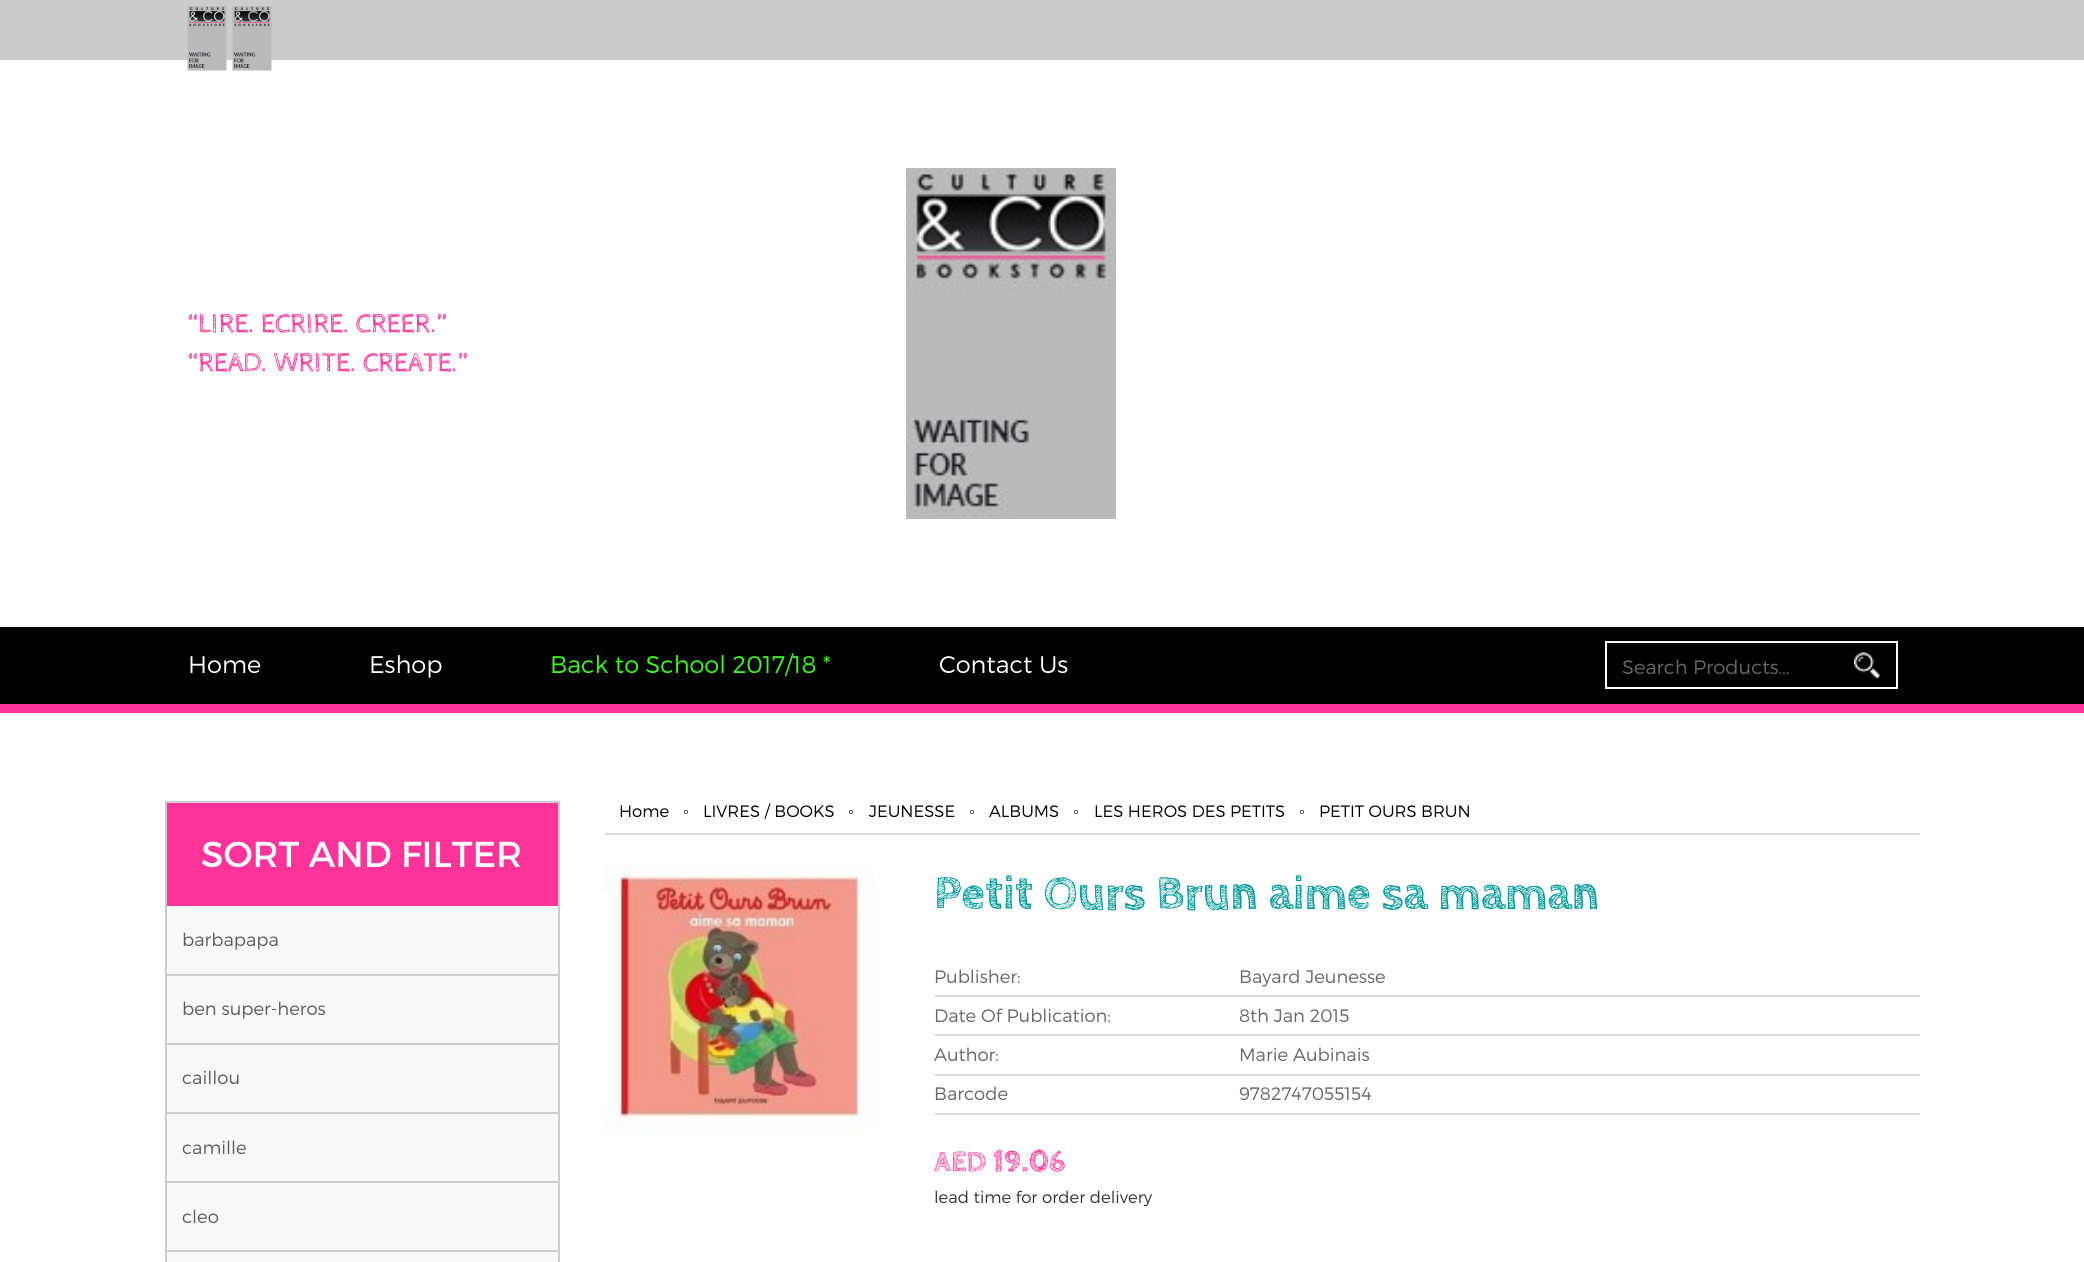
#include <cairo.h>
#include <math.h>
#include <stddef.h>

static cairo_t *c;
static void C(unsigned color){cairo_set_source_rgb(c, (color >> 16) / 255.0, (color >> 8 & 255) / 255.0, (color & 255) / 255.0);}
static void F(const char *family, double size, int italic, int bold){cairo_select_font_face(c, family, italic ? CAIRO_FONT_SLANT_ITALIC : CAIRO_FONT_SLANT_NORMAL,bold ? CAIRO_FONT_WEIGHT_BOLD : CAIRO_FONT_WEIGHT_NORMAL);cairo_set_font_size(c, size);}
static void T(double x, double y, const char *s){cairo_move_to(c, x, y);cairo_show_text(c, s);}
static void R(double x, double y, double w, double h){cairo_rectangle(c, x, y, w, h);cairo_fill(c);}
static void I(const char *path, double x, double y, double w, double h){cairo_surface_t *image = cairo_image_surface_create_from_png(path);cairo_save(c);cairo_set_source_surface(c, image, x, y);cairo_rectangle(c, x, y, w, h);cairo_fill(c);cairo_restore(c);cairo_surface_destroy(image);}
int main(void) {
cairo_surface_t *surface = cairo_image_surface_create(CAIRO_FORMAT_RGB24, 2084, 1262);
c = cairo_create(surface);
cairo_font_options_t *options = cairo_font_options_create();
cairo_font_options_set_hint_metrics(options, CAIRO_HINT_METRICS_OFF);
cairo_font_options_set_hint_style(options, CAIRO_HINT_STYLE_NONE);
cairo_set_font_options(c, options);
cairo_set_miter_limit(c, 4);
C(0xffffff);
cairo_paint(c);
C(0xcccccc);
R(0,0,2084,60);
I("1.png",187,6,40,65);
I("2.png",232,6,40,65);
F("Cabin Sketch",27,0,0);
C(0xff3399);
T(188,332,"“LIRE. ECRIRE. CREER.”");
T(188,371,"“READ. WRITE. CREATE.”");
I("3.png",906,168,210,351);
C(0x000000);
R(0,627,2084,77);
C(0xff3399);
R(0,704,2084,9);
F("Montserrat Light",24,0,0);
C(0xffffff);
T(188,673,"Home");
T(369,673,"Eshop");
C(0x39ff14);
T(550,673,"Back to School 2017/18 *");
C(0xffffff);
T(939,673,"Contact Us");
cairo_rectangle(c,1606,642,291,46);
cairo_stroke(c);
F("Montserrat Light",19.5,0,0);
C(0x676767);
T(1622,674,"Search Products…");
I("4.png",1854,652,26,26);
C(0xf8f8f8);
R(167,906,391,356);
cairo_rectangle(c,166,802,393,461);
C(0xcccccc);
cairo_stroke(c);
C(0xff3399);
R(167,803,391,103);
F("Montserrat",36,0,0);
C(0xffffff);
T(201,867,"SORT AND FILTER");
C(0xcccccc);
R(167,974,391,2);
F("Montserrat Light",18,0,0);
C(0x5e5d5d);
T(182,946,"barbapapa");
C(0xcccccc);
R(167,1043,391,2);
C(0x5e5d5d);
T(182,1015,"ben super-heros");
C(0xcccccc);
R(167,1112,391,2);
C(0x5e5d5d);
T(182,1084,"caillou");
C(0xcccccc);
R(167,1181,391,2);
C(0x5e5d5d);
T(182,1154,"camille");
C(0xcccccc);
R(167,1250,391,2);
C(0x5e5d5d);
T(182,1223,"cleo");
C(0xdddddd);
R(605,833,1315,2);
F("Montserrat Light",16.5,0,0);
C(0x000000);
T(619,817,"Home");
F("Liberation Serif",16.5,0,0);
T(683,817,"◦");
F("Montserrat Light",16.5,0,0);
T(703,817,"LIVRES / BOOKS");
F("Liberation Serif",16.5,0,0);
T(848,817,"◦");
F("Montserrat Light",16.5,0,0);
T(869,817,"JEUNESSE");
F("Liberation Serif",16.5,0,0);
T(969,817,"◦");
F("Montserrat Light",16.5,0,0);
T(989,817,"ALBUMS");
F("Liberation Serif",16.5,0,0);
T(1073,817,"◦");
F("Montserrat Light",16.5,0,0);
T(1094,817,"LES HEROS DES PETITS");
F("Liberation Serif",16.5,0,0);
T(1299,817,"◦");
F("Montserrat Light",16.5,0,0);
T(1319,817,"PETIT OURS BRUN");
I("5.png",604,864,271,269);
F("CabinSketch",48,0,1);
C(0x009999);
T(934,908,"Petit Ours Brun aime sa maman");
C(0xdddddd);
R(935,995,985,2);
F("Montserrat Light",18,0,0);
C(0x676767);
T(934,983,"Publisher:");
T(1239,983,"Bayard Jeunesse");
C(0xdddddd);
R(935,1034,985,2);
C(0x676767);
T(934,1022,"Date Of Publication:");
T(1239,1022,"8th Jan 2015");
C(0xdddddd);
R(935,1074,985,2);
C(0x676767);
T(934,1061,"Author:");
T(1239,1061,"Marie Aubinais");
C(0xdddddd);
R(935,1113,985,2);
C(0x676767);
T(934,1100,"Barcode");
T(1239,1100,"9782747055154");
F("CabinSketch",30,0,1);
C(0xff3399);
T(934,1171,"AED 19.06");
F("Montserrat Light",16.5,0,0);
C(0x333333);
T(934,1203,"lead time for order delivery");
cairo_surface_write_to_png(surface, "o.png");
cairo_font_options_destroy(options);
cairo_destroy(c);
cairo_surface_destroy(surface);
return 0;
}
